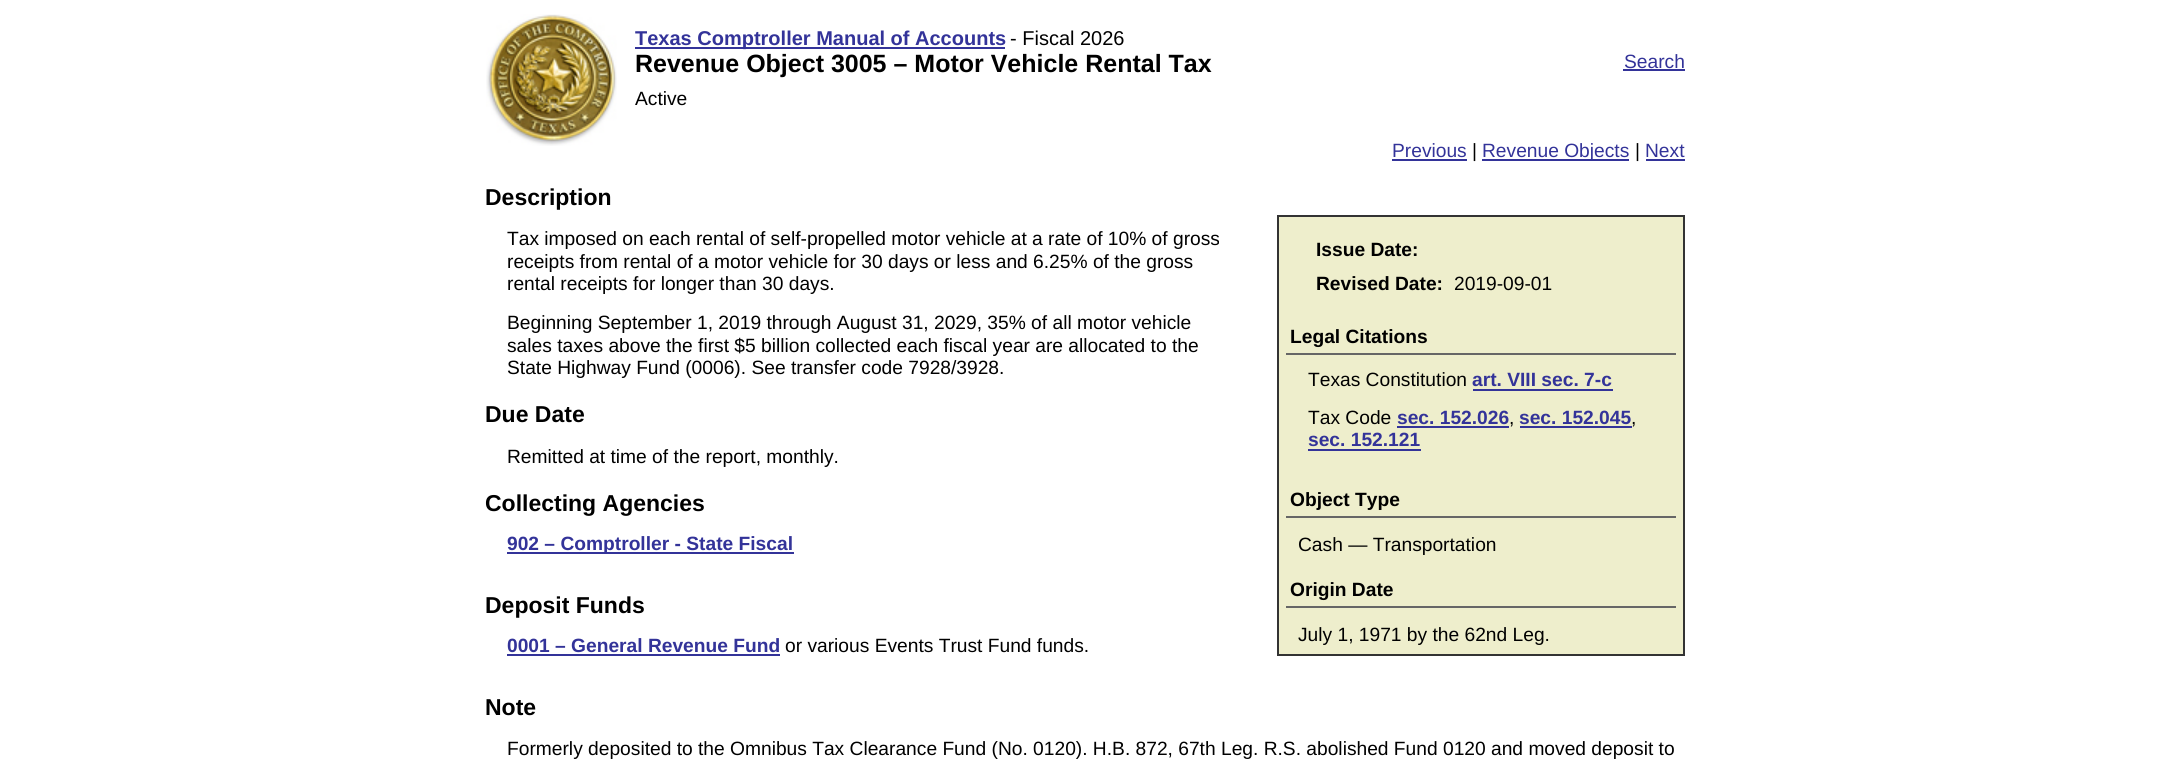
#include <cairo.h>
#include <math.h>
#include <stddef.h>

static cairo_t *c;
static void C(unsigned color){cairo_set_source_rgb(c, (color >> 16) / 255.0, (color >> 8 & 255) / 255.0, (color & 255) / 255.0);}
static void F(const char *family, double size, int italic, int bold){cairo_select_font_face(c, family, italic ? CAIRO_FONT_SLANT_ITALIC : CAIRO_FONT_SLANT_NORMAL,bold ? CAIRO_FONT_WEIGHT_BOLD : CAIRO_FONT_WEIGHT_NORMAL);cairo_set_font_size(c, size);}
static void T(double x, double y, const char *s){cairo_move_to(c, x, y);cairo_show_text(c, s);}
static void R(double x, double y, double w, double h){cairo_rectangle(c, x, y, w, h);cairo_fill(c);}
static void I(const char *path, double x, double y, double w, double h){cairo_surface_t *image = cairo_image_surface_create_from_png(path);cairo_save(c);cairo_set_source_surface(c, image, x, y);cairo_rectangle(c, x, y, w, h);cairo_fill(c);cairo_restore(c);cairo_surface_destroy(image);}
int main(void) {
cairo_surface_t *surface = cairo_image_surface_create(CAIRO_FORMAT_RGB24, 2169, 763);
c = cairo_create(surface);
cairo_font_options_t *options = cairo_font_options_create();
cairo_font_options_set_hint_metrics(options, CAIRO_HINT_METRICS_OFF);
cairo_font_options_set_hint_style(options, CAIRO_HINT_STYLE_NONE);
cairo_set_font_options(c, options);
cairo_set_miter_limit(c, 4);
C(0xffffff);
cairo_paint(c);
I("1.png",486,14,131,132);
C(0x333399);
R(635,47,370,2);
F("Liberation Sans",20,0,1);
T(635,45,"Texas Comptroller Manual of Accounts");
F("Liberation Sans",20,0,0);
C(0x000000);
T(1010,45,"- Fiscal 2026");
F("Liberation Sans",25,0,1);
T(635,72,"Revenue Object 3005 – Motor Vehicle Rental Tax");
F("Liberation Sans",19.2,0,0);
C(0x333399);
T(1624,68,"Search");
R(1623,69,62,2);
C(0x000000);
T(635,105,"Active");
C(0x333399);
T(1392,157,"Previous");
R(1392,159,75,2);
C(0x000000);
T(1472,157,"|");
C(0x333399);
R(1482,159,147,2);
T(1482,157,"Revenue Objects");
C(0x000000);
T(1635,157,"|");
C(0x333399);
T(1645,157,"Next");
R(1646,159,39,2);
F("Liberation Sans",23,0,1);
C(0x000000);
T(485,205,"Description");
F("Liberation Sans",19.2,0,0);
T(507,245,"Tax imposed on each rental of self-propelled motor vehicle at a rate of 10% of gross");
T(507,268,"receipts from rental of a motor vehicle for 30 days or less and 6.25% of the gross");
T(507,290,"rental receipts for longer than 30 days.");
T(507,329,"Beginning September 1, 2019 through August 31, 2029, 35% of all motor vehicle");
T(507,352,"sales taxes above the first $5 billion collected each fiscal year are allocated to the");
T(507,374,"State Highway Fund (0006). See transfer code 7928/3928.");
C(0xeeeecc);
cairo_rectangle(c,1278,216,406,439);
cairo_fill_preserve(c);
C(0x333333);
cairo_stroke(c);
F("Liberation Sans",19.2,0,1);
C(0x000000);
T(1316,256,"Issue Date:");
T(1316,290,"Revised Date:");
F("Liberation Sans",19.2,0,0);
T(1454,290,"2019-09-01");
C(0x666666);
R(1286,353,390,2);
F("Liberation Sans",19.2,0,1);
C(0x000000);
T(1290,343,"Legal Citations");
F("Liberation Sans",19.2,0,0);
T(1308,386,"Texas Constitution");
F("Liberation Sans",19.2,0,1);
C(0x333399);
T(1472,386,"art. VIII sec. 7-c");
R(1473,389,140,2);
F("Liberation Sans",19.2,0,0);
C(0x000000);
T(1308,424,"Tax Code");
F("Liberation Sans",19.2,0,1);
C(0x333399);
T(1397,424,"sec. 152.026");
R(1397,426,112,2);
F("Liberation Sans",19.2,0,0);
C(0x000000);
T(1509,424,",");
F("Liberation Sans",19.2,0,1);
C(0x333399);
T(1519,424,"sec. 152.045");
R(1520,426,112,2);
F("Liberation Sans",19.2,0,0);
C(0x000000);
T(1631,424,",");
F("Liberation Sans",19.2,0,1);
C(0x333399);
T(1308,446,"sec. 152.121");
R(1308,449,113,2);
C(0x666666);
R(1286,516,390,2);
C(0x000000);
T(1290,506,"Object Type");
F("Liberation Sans",19.2,0,0);
T(1298,551,"Cash — Transportation");
C(0x666666);
R(1286,606,390,2);
F("Liberation Sans",19.2,0,1);
C(0x000000);
T(1290,596,"Origin Date");
F("Liberation Sans",19.2,0,0);
T(1298,641,"July 1, 1971 by the 62nd Leg.");
F("Liberation Sans",23,0,1);
T(485,422,"Due Date");
F("Liberation Sans",19.2,0,0);
T(507,463,"Remitted at time of the report, monthly.");
F("Liberation Sans",23,0,1);
T(485,511,"Collecting Agencies");
C(0x333399);
R(507,552,287,2);
F("Liberation Sans",19.2,0,1);
T(507,550,"902 – Comptroller - State Fiscal");
F("Liberation Sans",23,0,1);
C(0x000000);
T(485,613,"Deposit Funds");
F("Liberation Sans",19.2,0,1);
C(0x333399);
T(507,652,"0001 – General Revenue Fund");
R(507,654,273,2);
F("Liberation Sans",19.2,0,0);
C(0x000000);
T(785,652,"or various Events Trust Fund funds.");
F("Liberation Sans",23,0,1);
T(485,715,"Note");
F("Liberation Sans",19.2,0,0);
T(507,755,"Formerly deposited to the Omnibus Tax Clearance Fund (No. 0120). H.B. 872, 67th Leg. R.S. abolished Fund 0120 and moved deposit to");
cairo_surface_write_to_png(surface, "o.png");
cairo_font_options_destroy(options);
cairo_destroy(c);
cairo_surface_destroy(surface);
return 0;
}
